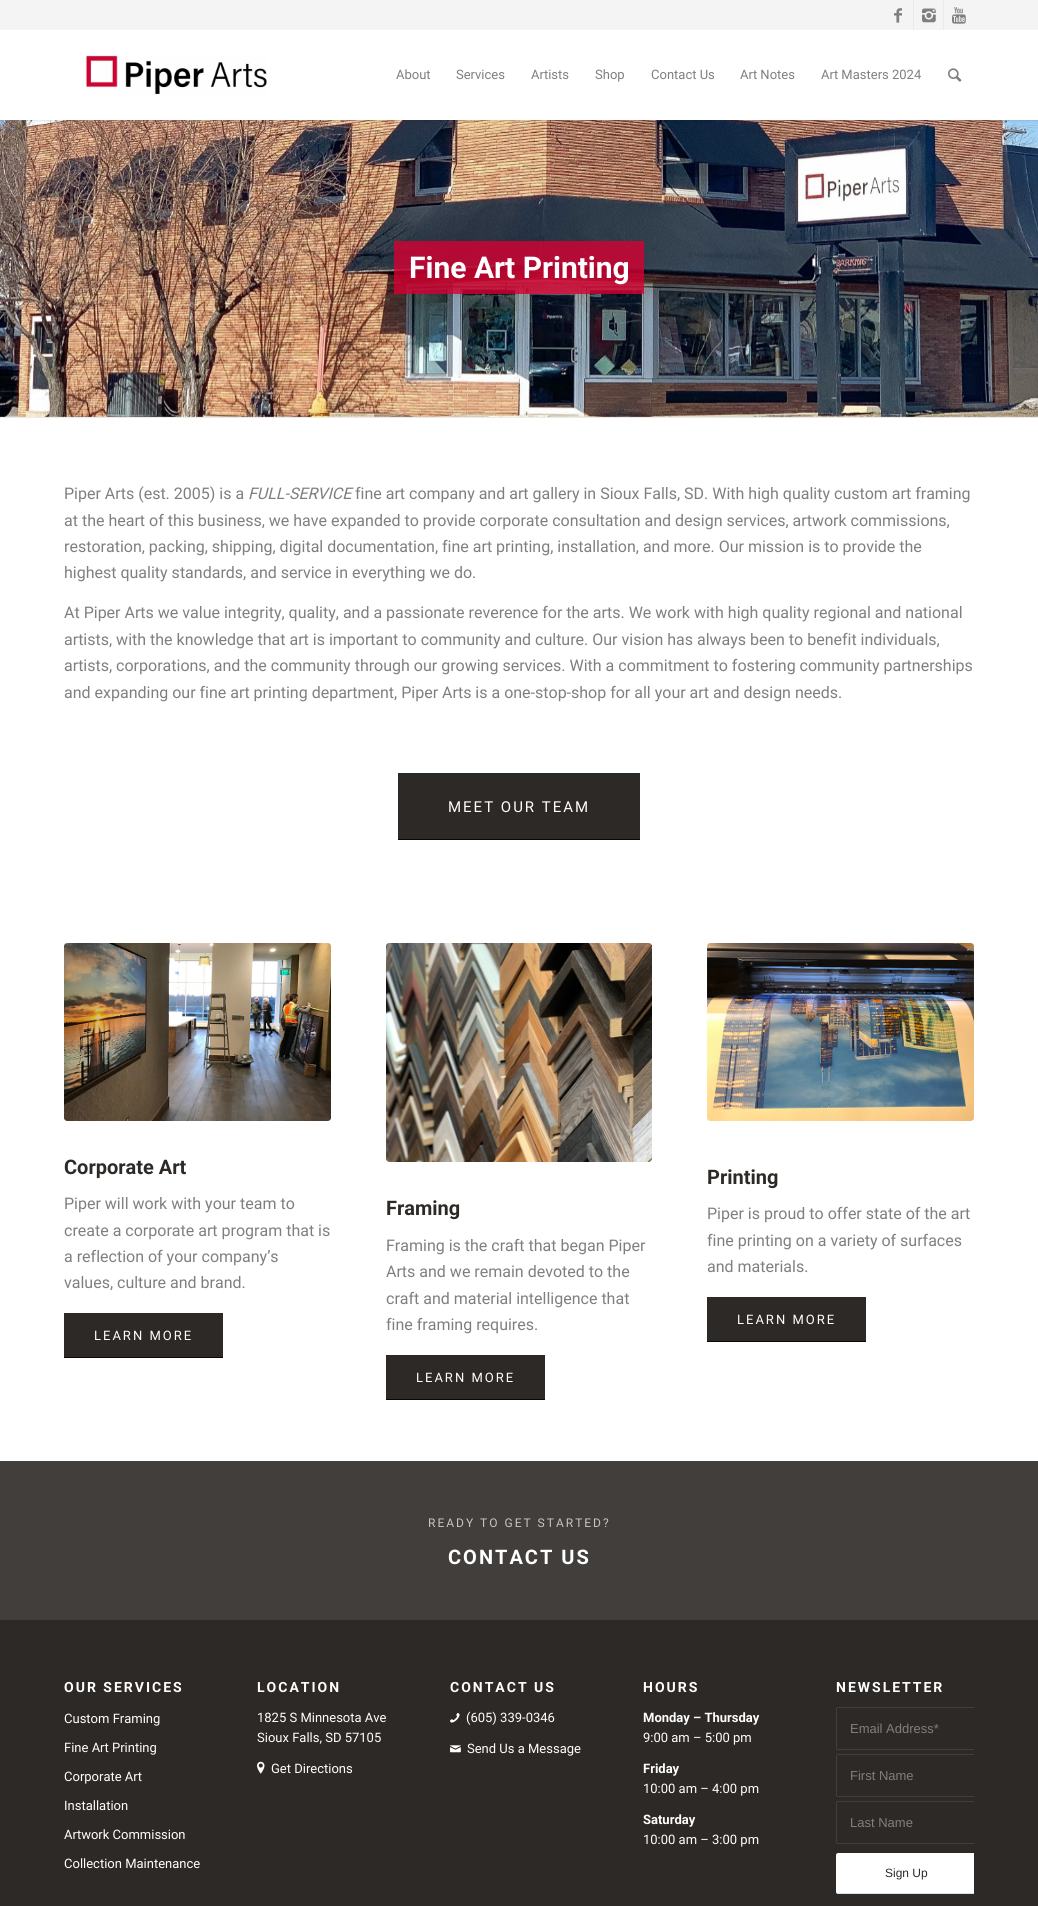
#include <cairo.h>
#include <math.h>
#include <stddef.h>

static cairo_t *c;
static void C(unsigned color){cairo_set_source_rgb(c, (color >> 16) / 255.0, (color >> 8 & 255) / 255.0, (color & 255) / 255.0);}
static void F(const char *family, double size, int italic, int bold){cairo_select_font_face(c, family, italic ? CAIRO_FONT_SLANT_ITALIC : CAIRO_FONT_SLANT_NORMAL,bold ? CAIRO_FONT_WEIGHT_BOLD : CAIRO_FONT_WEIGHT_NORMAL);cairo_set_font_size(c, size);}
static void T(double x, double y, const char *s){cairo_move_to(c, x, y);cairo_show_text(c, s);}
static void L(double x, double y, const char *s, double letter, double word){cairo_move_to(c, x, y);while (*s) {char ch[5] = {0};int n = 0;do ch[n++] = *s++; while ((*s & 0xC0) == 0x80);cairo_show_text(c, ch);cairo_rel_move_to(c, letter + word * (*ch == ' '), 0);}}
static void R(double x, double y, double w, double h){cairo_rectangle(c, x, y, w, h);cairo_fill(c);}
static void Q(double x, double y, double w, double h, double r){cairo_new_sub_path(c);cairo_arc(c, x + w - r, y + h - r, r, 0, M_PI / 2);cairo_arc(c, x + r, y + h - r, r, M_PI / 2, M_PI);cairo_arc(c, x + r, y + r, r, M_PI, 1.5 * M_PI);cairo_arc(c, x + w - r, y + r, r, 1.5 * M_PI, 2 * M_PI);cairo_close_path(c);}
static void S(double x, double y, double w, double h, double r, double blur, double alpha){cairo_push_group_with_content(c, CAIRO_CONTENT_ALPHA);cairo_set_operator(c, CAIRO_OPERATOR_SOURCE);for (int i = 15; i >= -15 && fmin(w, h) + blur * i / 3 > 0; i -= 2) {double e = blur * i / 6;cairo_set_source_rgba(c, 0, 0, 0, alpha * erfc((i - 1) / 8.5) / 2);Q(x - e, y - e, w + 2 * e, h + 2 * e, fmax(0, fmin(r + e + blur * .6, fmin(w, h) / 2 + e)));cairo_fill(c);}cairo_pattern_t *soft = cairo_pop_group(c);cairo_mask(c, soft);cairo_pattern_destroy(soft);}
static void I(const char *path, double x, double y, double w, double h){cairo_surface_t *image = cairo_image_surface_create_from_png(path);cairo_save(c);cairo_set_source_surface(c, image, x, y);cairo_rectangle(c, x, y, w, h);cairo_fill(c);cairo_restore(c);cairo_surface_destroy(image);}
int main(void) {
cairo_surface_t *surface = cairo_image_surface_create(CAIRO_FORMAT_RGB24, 1038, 1906);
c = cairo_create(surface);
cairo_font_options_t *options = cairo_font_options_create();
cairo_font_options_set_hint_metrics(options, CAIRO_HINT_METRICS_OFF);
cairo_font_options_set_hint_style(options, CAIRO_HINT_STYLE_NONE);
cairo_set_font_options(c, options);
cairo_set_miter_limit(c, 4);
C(0xffffff);
cairo_paint(c);
I("6.png",0,120,1038,297);
C(0x000000);
S(-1,-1,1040,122,0,1,.1);
C(0xf4f4f4);
R(0,0,1038,30);
C(0xeaeae9);
R(913,0,1,30);
I("1.png",894,8,8,15);
R(943,0,1,30);
I("2.png",922,8,14,15);
I("3.png",952,7,14,17);
C(0xffffff);
R(0,30,1038,90);
I("4.png",85,54,182,41);
F("Roboto",13,0,0);
C(0x817f7d);
T(396,79,"About");
T(456,79,"Services");
T(531,79,"Artists");
T(595,79,"Shop");
T(651,79,"Contact Us");
T(740,79,"Art Notes");
T(821,79,"Art Masters 2024");
I("5.png",948,68,14,14);
cairo_set_source_rgba(c,0.835,0,0.196,0.8);
R(394,241,250,53);
F("Roboto",30,0,1);
C(0xffffff);
T(409,278,"Fine Art Printing");
C(0xeaeae9);
R(0,417,1038,1);
F("Roboto",16,0,0);
C(0x817f7d);
T(64,499,"Piper Arts (est. 2005) is a");
F("Roboto",16,1,0);
T(248,499,"FULL-SERVICE");
F("Roboto",16,0,0);
T(355,499,"fine art company and art gallery in Sioux Falls, SD. With high quality custom art framing");
T(64,526,"at the heart of this business, we have expanded to provide corporate consultation and design services, artwork commissions,");
T(64,552,"restoration, packing, shipping, digital documentation, fine art printing, installation, and more. Our mission is to provide the");
T(64,578,"highest quality standards, and service in everything we do.");
T(64,618,"At Piper Arts we value integrity, quality, and a passionate reverence for the arts. We work with high quality regional and national");
T(64,645,"artists, with the knowledge that art is important to community and culture. Our vision has always been to benefit individuals,");
T(64,671,"artists, corporations, and the community through our growing services. With a commitment to fostering community partnerships");
T(64,698,"and expanding our fine art printing department, Piper Arts is a one-stop-shop for all your art and design needs.");
C(0x2d2926);
R(398,773,242,66);
C(0x0b0704);
R(398,839,242,1);
F("Roboto",15,0,0);
C(0xffffff);
L(448,812,"MEET OUR TEAM",2,0);
I("7.png",64,943,267,178);
F("Roboto",20,0,1);
C(0x2d2926);
T(64,1174,"Corporate Art");
F("Roboto",16,0,0);
C(0x817f7d);
T(64,1209,"Piper will work with your team to");
T(64,1236,"create a corporate art program that is");
T(64,1262,"a reflection of your company’s");
T(64,1288,"values, culture and brand.");
C(0x2d2926);
R(64,1313,159,44);
C(0x0b0704);
R(64,1357,159,1);
F("Roboto",13,0,0);
C(0xffffff);
L(94,1340,"LEARN MORE",2,0);
I("8.png",386,943,266,219);
F("Roboto",20,0,1);
C(0x2d2926);
T(386,1215,"Framing");
F("Roboto",16,0,0);
C(0x817f7d);
T(386,1251,"Framing is the craft that began Piper");
T(386,1277,"Arts and we remain devoted to the");
T(386,1304,"craft and material intelligence that");
T(386,1330,"fine framing requires.");
C(0x2d2926);
R(386,1355,159,44);
C(0x0b0704);
R(386,1399,159,1);
F("Roboto",13,0,0);
C(0xffffff);
L(416,1382,"LEARN MORE",2,0);
I("9.png",707,943,267,178);
F("Roboto",20,0,1);
C(0x2d2926);
T(707,1184,"Printing");
F("Roboto",16,0,0);
C(0x817f7d);
T(707,1219,"Piper is proud to offer state of the art");
T(707,1246,"fine printing on a variety of surfaces");
T(707,1272,"and materials.");
C(0x2d2926);
R(707,1297,159,44);
C(0x0b0704);
R(707,1341,159,1);
F("Roboto",13,0,0);
C(0xffffff);
L(737,1324,"LEARN MORE",2,0);
C(0x423e3c);
R(0,1461,1038,159);
F("Roboto",12,0,0);
C(0xc6c5c5);
L(428,1527,"READY TO GET STARTED?",2,0);
F("Roboto",20,0,1);
C(0xffffff);
L(448,1564,"CONTACT US",2,0);
C(0x2d2926);
R(0,1620,1038,286);
F("Roboto",14,0,1);
C(0xffffff);
L(64,1692,"OUR SERVICES",2,0);
F("Roboto",13,0,0);
T(64,1723,"Custom Framing");
T(64,1752,"Fine Art Printing");
T(64,1781,"Corporate Art");
T(64,1810,"Installation");
T(64,1839,"Artwork Commission");
T(64,1868,"Collection Maintenance");
F("Roboto",14,0,1);
L(257,1692,"LOCATION",2,0);
F("Roboto",13,0,0);
T(257,1722,"1825 S Minnesota Ave");
T(257,1742,"Sioux Falls, SD 57105");
I("10.png",257,1761,8,13);
T(271,1773,"Get Directions");
F("Roboto",14,0,1);
L(450,1692,"CONTACT US",2,0);
I("11.png",450,1713,10,10);
F("Roboto",13,0,0);
T(466,1722,"(605) 339-0346");
I("12.png",450,1745,11,8);
T(467,1753,"Send Us a Message");
F("Roboto",14,0,1);
L(643,1692,"HOURS",2,0);
F("Roboto",13,0,1);
T(643,1722,"Monday – Thursday");
F("Roboto",13,0,0);
T(643,1742,"9:00 am – 5:00 pm");
F("Roboto",13,0,1);
T(643,1773,"Friday");
F("Roboto",13,0,0);
T(643,1793,"10:00 am – 4:00 pm");
F("Roboto",13,0,1);
T(643,1824,"Saturday");
F("Roboto",13,0,0);
T(643,1844,"10:00 am – 3:00 pm");
F("Roboto",14,0,1);
L(836,1692,"NEWSLETTER",2,0);
cairo_save(c);
cairo_rectangle(c,836,1665,138,231);
cairo_clip(c);
Q(836.5,1707.5,141,42,1.5);
C(0x423e3c);
cairo_set_line_width(c,1);
cairo_stroke(c);
cairo_restore(c);
F("Liberation Sans",13,0,0);
C(0x817f7d);
T(850,1733,"Email Address*");
cairo_save(c);
cairo_rectangle(c,836,1665,138,231);
cairo_clip(c);
Q(836.5,1754.5,141,42,1.5);
C(0x423e3c);
cairo_set_line_width(c,1);
cairo_stroke(c);
cairo_restore(c);
T(850,1780,"First Name");
cairo_save(c);
cairo_rectangle(c,836,1665,138,231);
cairo_clip(c);
Q(836.5,1801.5,141,42,1.5);
C(0x423e3c);
cairo_set_line_width(c,1);
cairo_stroke(c);
cairo_restore(c);
T(850,1827,"Last Name");
C(0xffffff);
cairo_new_path(c);
cairo_move_to(c,838,1853);
cairo_line_to(c,974,1853);
cairo_line_to(c,974,1894);
cairo_line_to(c,838,1894);
cairo_curve_to(c,837,1894,836,1893,836,1892);
cairo_line_to(c,836,1855);
cairo_curve_to(c,836,1854,837,1853,838,1853);
cairo_close_path(c);
cairo_fill(c);
C(0xdddddd);
R(837,1893,137,1);
F("Liberation Sans",12,0,0);
C(0x2d2926);
T(885,1877,"Sign Up");
cairo_surface_write_to_png(surface, "o.png");
cairo_font_options_destroy(options);
cairo_destroy(c);
cairo_surface_destroy(surface);
return 0;
}
